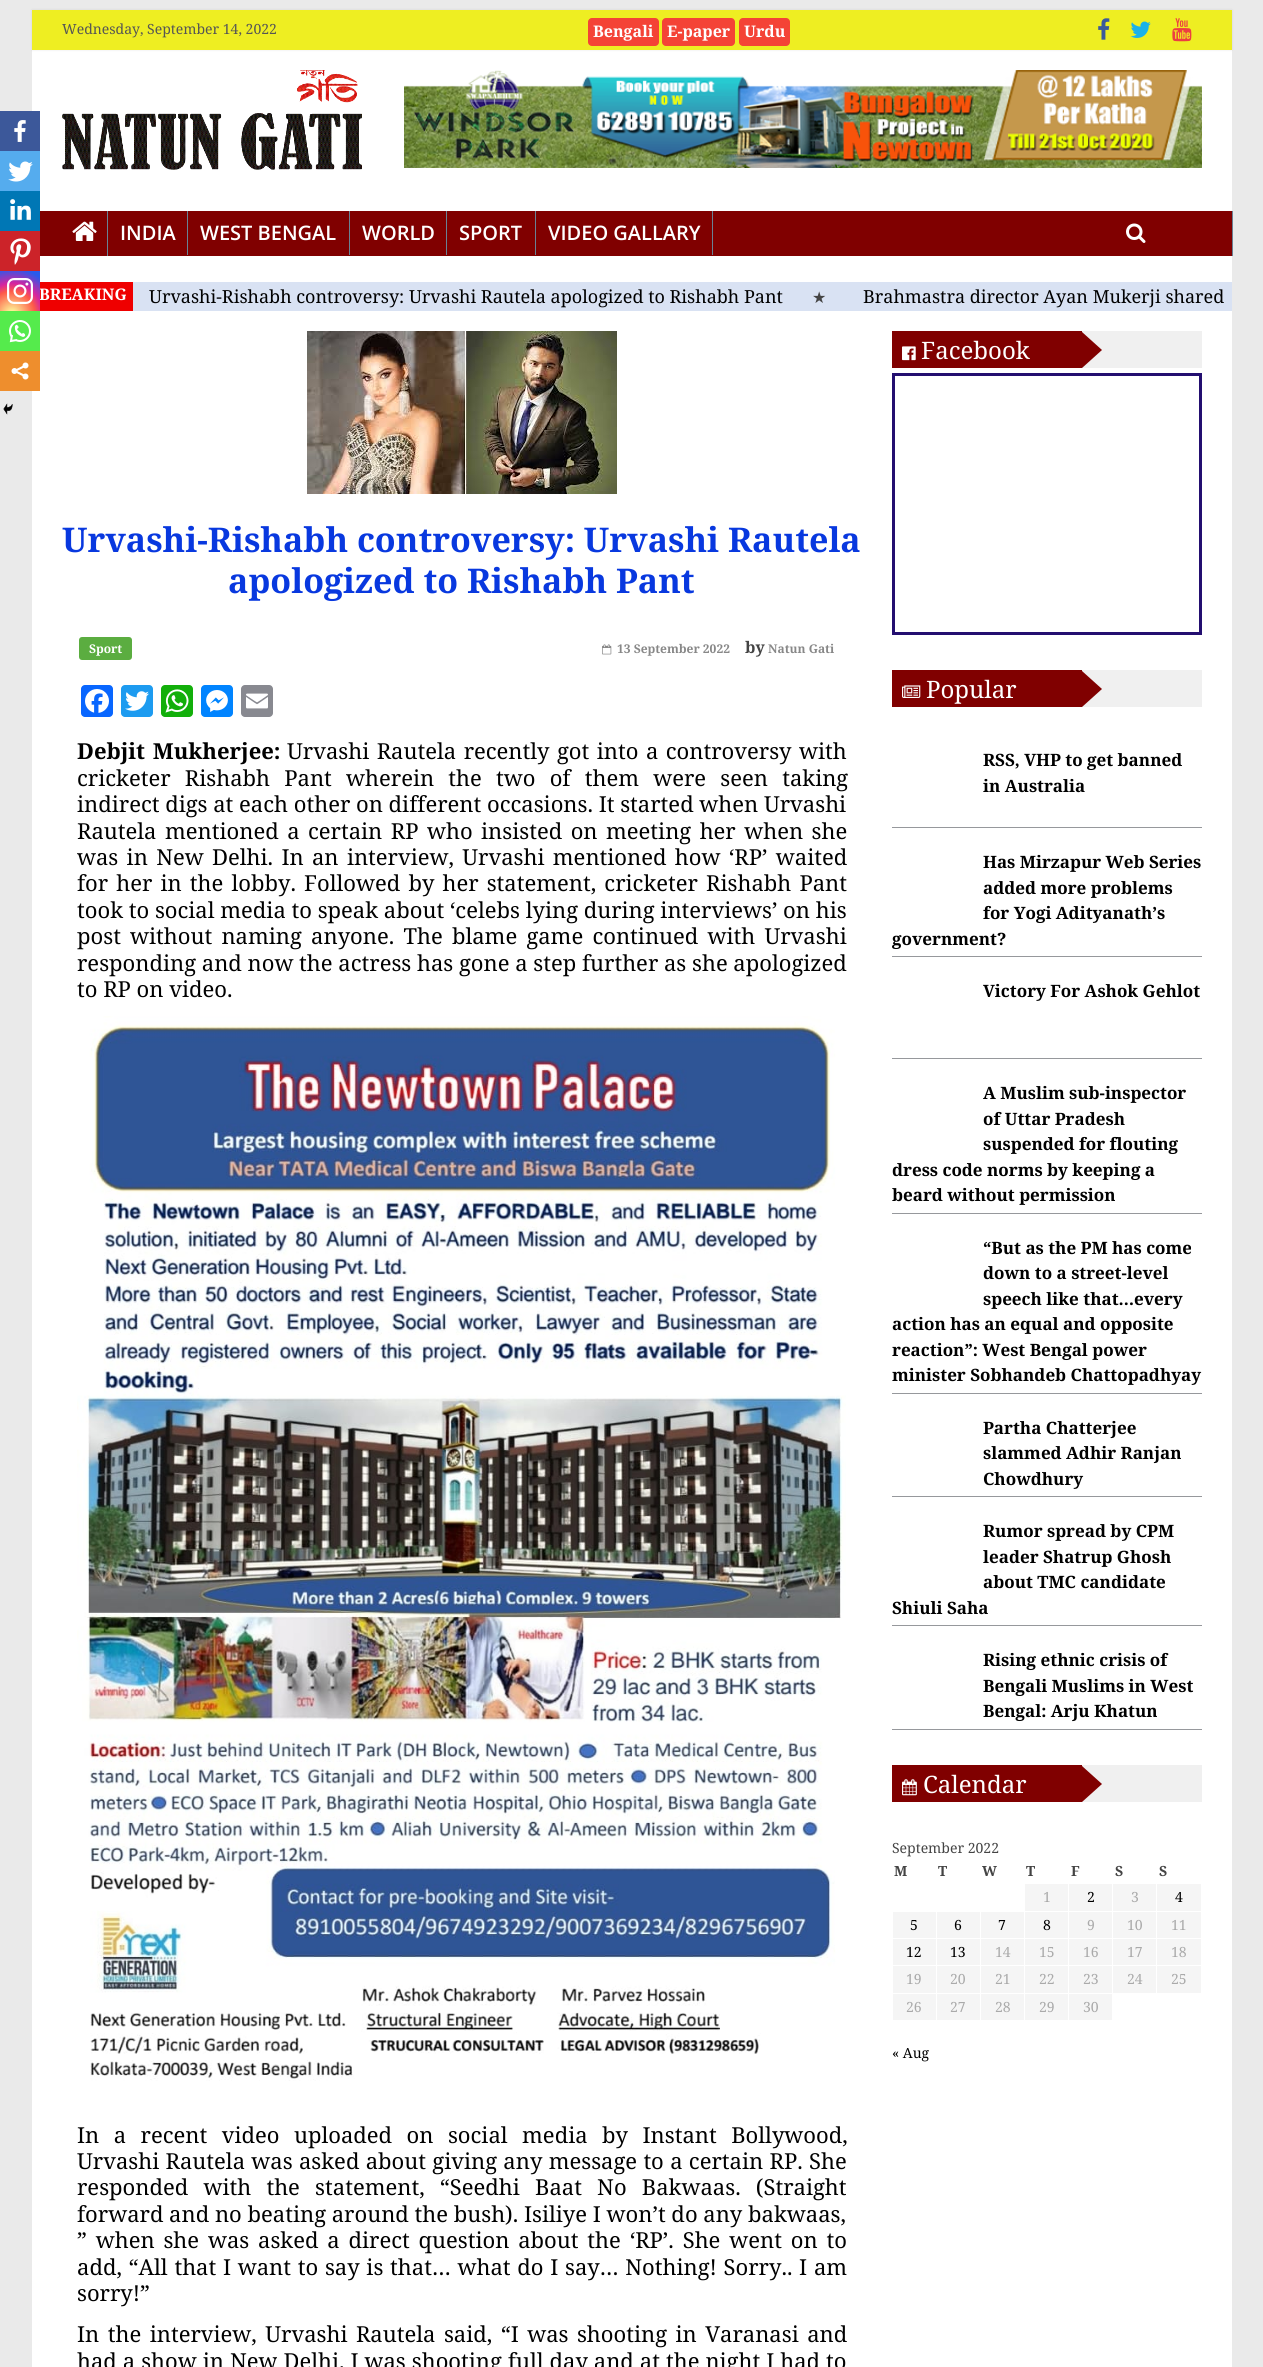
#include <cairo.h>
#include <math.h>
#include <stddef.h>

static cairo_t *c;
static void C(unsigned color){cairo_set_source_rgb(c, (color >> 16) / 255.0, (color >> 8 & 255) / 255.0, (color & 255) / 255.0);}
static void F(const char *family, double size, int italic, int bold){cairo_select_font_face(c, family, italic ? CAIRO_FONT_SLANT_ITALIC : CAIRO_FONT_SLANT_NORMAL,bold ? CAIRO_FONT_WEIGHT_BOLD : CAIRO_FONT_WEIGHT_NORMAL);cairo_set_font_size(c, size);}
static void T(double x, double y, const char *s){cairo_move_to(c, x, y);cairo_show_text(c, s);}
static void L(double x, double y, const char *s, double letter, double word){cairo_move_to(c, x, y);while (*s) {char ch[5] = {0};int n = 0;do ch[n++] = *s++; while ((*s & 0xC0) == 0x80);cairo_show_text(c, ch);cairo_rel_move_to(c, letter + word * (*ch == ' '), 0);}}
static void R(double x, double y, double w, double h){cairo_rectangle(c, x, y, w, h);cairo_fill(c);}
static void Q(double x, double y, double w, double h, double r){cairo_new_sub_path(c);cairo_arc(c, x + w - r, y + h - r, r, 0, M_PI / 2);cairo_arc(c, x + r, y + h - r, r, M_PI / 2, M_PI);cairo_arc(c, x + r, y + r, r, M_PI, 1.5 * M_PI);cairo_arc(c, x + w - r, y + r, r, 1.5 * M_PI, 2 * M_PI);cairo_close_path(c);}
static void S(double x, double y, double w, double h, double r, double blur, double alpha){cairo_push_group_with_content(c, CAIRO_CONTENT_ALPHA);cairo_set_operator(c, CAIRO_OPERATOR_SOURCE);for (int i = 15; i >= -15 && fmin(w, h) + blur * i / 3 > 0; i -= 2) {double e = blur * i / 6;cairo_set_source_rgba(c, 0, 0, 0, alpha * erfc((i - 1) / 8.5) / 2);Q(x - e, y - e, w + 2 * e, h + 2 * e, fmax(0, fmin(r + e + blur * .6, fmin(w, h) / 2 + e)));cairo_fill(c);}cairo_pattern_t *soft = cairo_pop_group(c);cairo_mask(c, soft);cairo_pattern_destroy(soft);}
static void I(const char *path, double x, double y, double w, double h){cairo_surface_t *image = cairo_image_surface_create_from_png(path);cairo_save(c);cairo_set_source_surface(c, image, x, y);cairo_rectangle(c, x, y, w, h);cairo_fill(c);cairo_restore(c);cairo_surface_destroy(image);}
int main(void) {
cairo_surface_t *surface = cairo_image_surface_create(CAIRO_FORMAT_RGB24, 1263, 2367);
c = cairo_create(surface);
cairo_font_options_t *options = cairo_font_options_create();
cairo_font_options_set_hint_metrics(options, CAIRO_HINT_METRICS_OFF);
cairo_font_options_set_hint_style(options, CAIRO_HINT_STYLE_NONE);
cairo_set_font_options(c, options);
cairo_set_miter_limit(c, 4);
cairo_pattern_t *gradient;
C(0xeaeaea);
cairo_paint(c);
C(0xffffff);
R(32,50,1200,232);
C(0x000000);
S(32,10,1200,40,0,1,.1);
C(0xeeee22);
R(32,10,1200,40);
F("Noto Serif",14,0,0);
C(0x555555);
T(62,34,"Wednesday, September 14, 2022");
C(0xf44336);
Q(588,18,71,28,4);
cairo_fill(c);
F("Noto Serif",16,0,1);
C(0xffffff);
T(593,37,"Bengali");
C(0xf44336);
Q(662,18,73,28,4);
cairo_fill(c);
C(0xffffff);
T(667,37,"E-paper");
C(0xf44336);
Q(739,18,51,28,4);
cairo_fill(c);
C(0xffffff);
T(744,37,"Urdu");
I("1.png",1098,18,12,22);
I("2.png",1130,21,21,17);
I("3.png",1172,18,20,24);
I("4.png",62,70,300,100);
I("5.png",404,70,798,98);
C(0x800000);
R(40,211,1192,45);
C(0x698294);
R(1232,211,1,45);
R(107,211,1,45);
I("6.png",72,221,25,20);
R(187,211,1,44);
F("Open Sans SemiBold",20,0,0);
C(0xffffff);
T(120,240,"INDIA");
C(0x698294);
R(349,211,1,44);
C(0xffffff);
T(200,240,"WEST BENGAL");
C(0x698294);
R(446,211,1,44);
C(0xffffff);
T(362,240,"WORLD");
C(0x698294);
R(535,211,1,44);
C(0xffffff);
T(459,240,"SPORT");
C(0x698294);
R(712,211,1,44);
C(0xffffff);
T(548,240,"VIDEO GALLARY");
I("7.png",1126,223,20,20);
C(0xef0000);
R(40,282,93,29);
F("Noto Serif",16,0,1);
C(0xffffff);
T(39,300,"BREAKING");
C(0xd9e2f3);
R(133,282,1099,29);
F("Noto Serif",18,0,0);
C(0x000000);
T(149,303,"Urvashi-Rishabh controversy: Urvashi Rautela apologized to Rishabh Pant");
F("DejaVu Sans",16,0,0);
C(0x444444);
T(812,303,"★");
F("Noto Serif",18,0,0);
C(0x000000);
T(863,303,"Brahmastra director Ayan Mukerji shared");
C(0xffffff);
R(32,311,1200,2056);
I("8.png",307,331,310,163);
F("Noto Serif",34,0,1);
C(0x0838df);
T(62,552,"Urvashi-Rishabh controversy: Urvashi Rautela");
T(228,593,"apologized to Rishabh Pant");
C(0x5bad40);
Q(79,637,53,23,3);
cairo_fill(c);
F("Noto Serif",12,0,1);
C(0xffffff);
T(89,653,"Sport");
I("9.png",602,644,10,11);
C(0x888888);
T(617,653,"13 September 2022");
F("Noto Serif",16,0,1);
C(0x444444);
T(745,653,"by");
F("Noto Serif",12,0,1);
C(0x888888);
T(768,653,"Natun Gati");
C(0x3c589a);
R(0,111,40,40);
I("10.png",14,120,12,22);
C(0x55acee);
R(0,151,40,40);
I("11.png",8,161,25,21);
C(0x0077b5);
R(0,191,40,40);
I("12.png",10,199,21,21);
C(0xcc2329);
R(0,231,40,40);
I("13.png",10,238,21,27);
gradient = cairo_pattern_create_radial(12,314,0,12,314,51);
cairo_pattern_add_color_stop_rgba(gradient,0,0.992,0.957,0.592,1);
cairo_pattern_add_color_stop_rgba(gradient,.05,0.992,0.957,0.592,1);
cairo_pattern_add_color_stop_rgba(gradient,.45,0.992,0.349,0.286,1);
cairo_pattern_add_color_stop_rgba(gradient,.6,0.839,0.141,0.624,1);
cairo_pattern_add_color_stop_rgba(gradient,.9,0.157,0.353,0.922,1);
cairo_set_source(c,gradient);
cairo_pattern_destroy(gradient);
R(0,271,40,40);
I("14.png",7,278,26,26);
C(0x55eb4c);
R(0,311,40,40);
I("15.png",9,320,22,23);
C(0xee8e2d);
R(0,351,40,40);
I("16.png",11,362,18,18);
I("17.png",3,403,10,12);
C(0x0866ff);
Q(81,685,32,32,4);
cairo_fill(c);
I("18.png",85,689,24,24);
C(0x1d9bf0);
Q(121,685,32,32,4);
cairo_fill(c);
I("19.png",125,691,24,20);
C(0x12af0a);
Q(161,685,32,32,4);
cairo_fill(c);
I("20.png",165,689,24,24);
C(0x0084ff);
Q(201,685,32,32,4);
cairo_fill(c);
I("21.png",206,690,22,22);
C(0x888990);
Q(241,685,32,32,4);
cairo_fill(c);
I("22.png",246,693,22,16);
F("Noto Serif",22,0,1);
C(0x000000);
L(77,759,"Debjit Mukherjee:",0,2);
F("Noto Serif",22,0,0);
L(287,759,"Urvashi Rautela recently got into a controversy with",0,1.75);
L(77,786,"cricketer Rishabh Pant wherein the two of them were seen taking",0,8.5);
T(77,812,"indirect digs at each other on different occasions. It started when Urvashi");
L(77,839,"Rautela mentioned a certain RP who insisted on meeting her when she",0,2.75);
L(77,865,"was in New Delhi. In an interview, Urvashi mentioned how ‘RP’ waited",0,2.6);
L(77,891,"for her in the lobby. Followed by her statement, cricketer Rishabh Pant",0,2.4);
T(77,918,"took to social media to speak about ‘celebs lying during interviews’ on his");
L(77,944,"post without naming anyone. The blame game continued with Urvashi",0,3.5);
T(77,971,"responding and now the actress has gone a step further as she apologized");
T(77,997,"to RP on video.");
I("23.png",77,1016,769,1065);
L(77,2143,"In a recent video uploaded on social media by Instant Bollywood,",0,8.75);
L(77,2169,"Urvashi Rautela was asked about giving any message to a certain RP. She",0,.6);
L(77,2195,"responded with the statement, “Seedhi Baat No Bakwaas. (Straight",0,9.5);
T(77,2222,"forward and no beating around the bush). Isiliye I won’t do any bakwaas,");
L(77,2248,"” when she was asked a direct question about the ‘RP’. She went on to",0,3.1);
L(77,2275,"add, “All that I want to say is that… what do I say… Nothing! Sorry.. I am",0,1);
T(77,2301,"sorry!”");
L(77,2342,"In the interview, Urvashi Rautela said, “I was shooting in Varanasi and",0,2.75);
L(77,2369,"had a show in New Delhi. I was shooting full day and at the night I had to",0,.25);
C(0xf0f0f0);
R(1082,331,120,37);
C(0x800000);
R(892,331,190,37);
I("24.png",902,346,14,15);
F("Noto Serif",24,0,0);
C(0xffffff);
T(921,359,"Facebook");
C(0x800000);
cairo_new_path(c);
cairo_move_to(c,1082,368);
cairo_line_to(c,1082,332);
cairo_line_to(c,1102,350);
cairo_close_path(c);
cairo_fill(c);
cairo_rectangle(c,893.5,374.5,307,259);
C(0x230e70);
cairo_set_line_width(c,3);
cairo_stroke(c);
C(0xf0f0f0);
R(1082,670,120,37);
C(0x800000);
R(892,670,190,37);
I("25.png",902,685,19,13);
C(0xffffff);
T(926,698,"Popular");
C(0x800000);
cairo_new_path(c);
cairo_move_to(c,1082,707);
cairo_line_to(c,1082,671);
cairo_line_to(c,1102,689);
cairo_close_path(c);
cairo_fill(c);
C(0x96989c);
R(892,827,310,1);
F("Noto Serif",17,0,1);
C(0x000000);
T(983,766,"RSS, VHP to get banned");
T(983,792,"in Australia");
C(0x96989c);
R(892,956,310,1);
C(0x000000);
T(983,868,"Has Mirzapur Web Series");
T(983,894,"added more problems");
T(983,919,"for Yogi Adityanath’s");
cairo_save(c);
cairo_rectangle(c,892,844,310,112);
cairo_clip(c);
T(892,945,"government?");
cairo_restore(c);
C(0x96989c);
R(892,1058,310,1);
C(0x000000);
T(983,997,"Victory For Ashok Gehlot");
C(0x96989c);
R(892,1213,310,1);
C(0x000000);
T(983,1099,"A Muslim sub-inspector");
T(983,1125,"of Uttar Pradesh");
T(983,1150,"suspended for flouting");
T(892,1176,"dress code norms by keeping a");
T(892,1201,"beard without permission");
C(0x96989c);
R(892,1393,310,1);
C(0x000000);
T(983,1254,"“But as the PM has come");
T(983,1279,"down to a street-level");
T(983,1305,"speech like that…every");
T(892,1330,"action has an equal and opposite");
T(892,1356,"reaction”: West Bengal power");
T(892,1381,"minister Sobhandeb Chattopadhyay");
C(0x96989c);
R(892,1496,310,1);
C(0x000000);
T(983,1434,"Partha Chatterjee");
T(983,1459,"slammed Adhir Ranjan");
T(983,1485,"Chowdhury");
C(0x96989c);
R(892,1625,310,1);
C(0x000000);
T(983,1537,"Rumor spread by CPM");
T(983,1563,"leader Shatrup Ghosh");
T(983,1588,"about TMC candidate");
T(892,1614,"Shiuli Saha");
C(0x96989c);
R(892,1729,310,1);
C(0x000000);
T(983,1666,"Rising ethnic crisis of");
T(983,1692,"Bengali Muslims in West");
T(983,1717,"Bengal: Arju Khatun");
C(0xf0f0f0);
R(1082,1765,120,37);
C(0x800000);
R(892,1765,190,37);
I("26.png",902,1779,15,17);
F("Noto Serif",24,0,0);
C(0xffffff);
T(923,1793,"Calendar");
C(0x800000);
cairo_new_path(c);
cairo_move_to(c,1082,1802);
cairo_line_to(c,1082,1766);
cairo_line_to(c,1102,1784);
cairo_close_path(c);
cairo_fill(c);
F("Noto Serif",14,0,0);
C(0x444444);
T(892,1853,"September 2022");
F("Noto Serif",14,0,1);
T(894,1876,"M");
T(938,1876,"T");
T(982,1876,"W");
T(1026,1876,"T");
T(1071,1876,"F");
T(1115,1876,"S");
T(1159,1876,"S");
C(0xf5f5f5);
R(1025,1884,43,27);
F("Noto Serif",14,0,0);
C(0xaaaaaa);
T(1043,1902,"1");
C(0xf5f5f5);
R(1069,1884,43,27);
C(0x000000);
T(1087,1902,"2");
C(0xf5f5f5);
R(1113,1884,43,27);
C(0xaaaaaa);
T(1131,1902,"3");
C(0xf5f5f5);
R(1157,1884,44,27);
C(0x000000);
T(1175,1902,"4");
C(0xf5f5f5);
R(893,1912,43,26);
C(0x000000);
T(910,1930,"5");
C(0xf5f5f5);
R(937,1912,43,26);
C(0x000000);
T(954,1930,"6");
C(0xf5f5f5);
R(981,1912,43,26);
C(0x000000);
T(998,1930,"7");
C(0xf5f5f5);
R(1025,1912,43,26);
C(0x000000);
T(1043,1930,"8");
C(0xf5f5f5);
R(1069,1912,43,26);
C(0xaaaaaa);
T(1087,1930,"9");
C(0xf5f5f5);
R(1113,1912,43,26);
C(0xaaaaaa);
T(1127,1930,"10");
C(0xf5f5f5);
R(1157,1912,44,26);
C(0xaaaaaa);
T(1171,1930,"11");
C(0xf5f5f5);
R(893,1939,43,26);
C(0x000000);
T(906,1957,"12");
C(0xf5f5f5);
R(937,1939,43,26);
C(0x000000);
T(950,1957,"13");
C(0xf5f5f5);
R(981,1939,43,26);
C(0xaaaaaa);
T(995,1957,"14");
C(0xf5f5f5);
R(1025,1939,43,26);
C(0xaaaaaa);
T(1039,1957,"15");
C(0xf5f5f5);
R(1069,1939,43,26);
C(0xaaaaaa);
T(1083,1957,"16");
C(0xf5f5f5);
R(1113,1939,43,26);
C(0xaaaaaa);
T(1127,1957,"17");
C(0xf5f5f5);
R(1157,1939,44,26);
C(0xaaaaaa);
T(1171,1957,"18");
C(0xf5f5f5);
R(893,1966,43,27);
C(0xaaaaaa);
T(906,1984,"19");
C(0xf5f5f5);
R(937,1966,43,27);
C(0xaaaaaa);
T(950,1984,"20");
C(0xf5f5f5);
R(981,1966,43,27);
C(0xaaaaaa);
T(995,1984,"21");
C(0xf5f5f5);
R(1025,1966,43,27);
C(0xaaaaaa);
T(1039,1984,"22");
C(0xf5f5f5);
R(1069,1966,43,27);
C(0xaaaaaa);
T(1083,1984,"23");
C(0xf5f5f5);
R(1113,1966,43,27);
C(0xaaaaaa);
T(1127,1984,"24");
C(0xf5f5f5);
R(1157,1966,44,27);
C(0xaaaaaa);
T(1171,1984,"25");
C(0xf5f5f5);
R(893,1994,43,26);
C(0xaaaaaa);
T(906,2012,"26");
C(0xf5f5f5);
R(937,1994,43,26);
C(0xaaaaaa);
T(950,2012,"27");
C(0xf5f5f5);
R(981,1994,43,26);
C(0xaaaaaa);
T(995,2012,"28");
C(0xf5f5f5);
R(1025,1994,43,26);
C(0xaaaaaa);
T(1039,2012,"29");
C(0xf5f5f5);
R(1069,1994,43,26);
C(0xaaaaaa);
T(1083,2012,"30");
C(0x000000);
T(892,2058,"« Aug");
cairo_surface_write_to_png(surface, "o.png");
cairo_font_options_destroy(options);
cairo_destroy(c);
cairo_surface_destroy(surface);
return 0;
}
